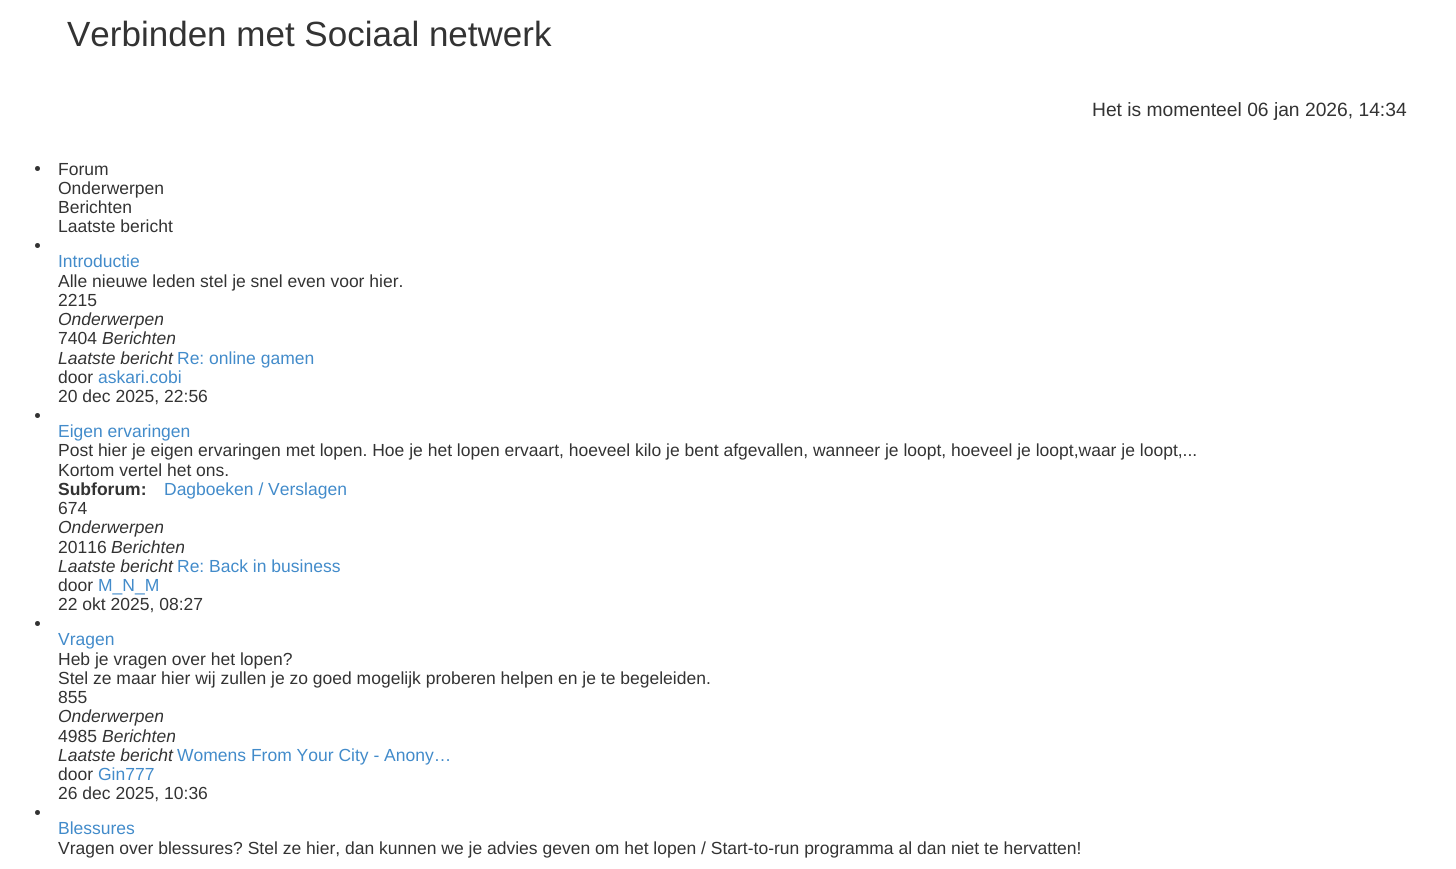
#include <cairo.h>
#include <math.h>
#include <stddef.h>

static cairo_t *c;
static void C(unsigned color){cairo_set_source_rgb(c, (color >> 16) / 255.0, (color >> 8 & 255) / 255.0, (color & 255) / 255.0);}
static void F(const char *family, double size, int italic, int bold){cairo_select_font_face(c, family, italic ? CAIRO_FONT_SLANT_ITALIC : CAIRO_FONT_SLANT_NORMAL,bold ? CAIRO_FONT_WEIGHT_BOLD : CAIRO_FONT_WEIGHT_NORMAL);cairo_set_font_size(c, size);}
static void T(double x, double y, const char *s){cairo_move_to(c, x, y);cairo_show_text(c, s);}
int main(void) {
cairo_surface_t *surface = cairo_image_surface_create(CAIRO_FORMAT_RGB24, 1456, 869);
c = cairo_create(surface);
cairo_font_options_t *options = cairo_font_options_create();
cairo_font_options_set_hint_metrics(options, CAIRO_HINT_METRICS_OFF);
cairo_font_options_set_hint_style(options, CAIRO_HINT_STYLE_NONE);
cairo_set_font_options(c, options);
cairo_set_miter_limit(c, 4);
C(0xffffff);
cairo_paint(c);
F("Liberation Sans",35,0,0);
C(0x333333);
T(67,46,"Verbinden met Sociaal netwerk");
F("Liberation Sans",19.25,0,0);
T(1092,116,"Het is momenteel 06 jan 2026, 14:34");
cairo_new_path(c);
cairo_arc(c,37.5,168.5,2.5,0,2 * M_PI);
cairo_fill(c);
F("Liberation Sans",17.5,0,0);
T(58,175,"Forum");
T(58,194,"Onderwerpen");
T(58,213,"Berichten");
T(58,232,"Laatste bericht");
cairo_new_path(c);
cairo_arc(c,37.5,245.5,2.5,0,2 * M_PI);
cairo_fill(c);
C(0x428bca);
T(58,267,"Introductie");
C(0x333333);
T(58,287,"Alle nieuwe leden stel je snel even voor hier.");
T(58,306,"2215");
F("Liberation Sans",17.5,1,0);
T(58,325,"Onderwerpen");
F("Liberation Sans",17.5,0,0);
T(58,344,"7404");
F("Liberation Sans",17.5,1,0);
T(102,344,"Berichten");
T(58,364,"Laatste bericht");
F("Liberation Sans",17.5,0,0);
C(0x428bca);
T(177,364,"Re: online gamen");
C(0x333333);
T(58,383,"door");
C(0x428bca);
T(98,383,"askari.cobi");
C(0x333333);
T(58,402,"20 dec 2025, 22:56");
cairo_new_path(c);
cairo_arc(c,37.5,415.5,2.5,0,2 * M_PI);
cairo_fill(c);
C(0x428bca);
T(58,437,"Eigen ervaringen");
C(0x333333);
T(58,456,"Post hier je eigen ervaringen met lopen. Hoe je het lopen ervaart, hoeveel kilo je bent afgevallen, wanneer je loopt, hoeveel je loopt,waar je loopt,...");
T(58,476,"Kortom vertel het ons.");
F("Liberation Sans",17.5,0,1);
T(58,495,"Subforum:");
F("Liberation Sans",17.5,0,0);
C(0x428bca);
T(164,495,"Dagboeken / Verslagen");
C(0x333333);
T(58,514,"674");
F("Liberation Sans",17.5,1,0);
T(58,533,"Onderwerpen");
F("Liberation Sans",17.5,0,0);
T(58,553,"20116");
F("Liberation Sans",17.5,1,0);
T(111,553,"Berichten");
T(58,572,"Laatste bericht");
F("Liberation Sans",17.5,0,0);
C(0x428bca);
T(177,572,"Re: Back in business");
C(0x333333);
T(58,591,"door");
C(0x428bca);
T(98,591,"M_N_M");
C(0x333333);
T(58,610,"22 okt 2025, 08:27");
cairo_new_path(c);
cairo_arc(c,37.5,623.5,2.5,0,2 * M_PI);
cairo_fill(c);
C(0x428bca);
T(58,645,"Vragen");
C(0x333333);
T(58,665,"Heb je vragen over het lopen?");
T(58,684,"Stel ze maar hier wij zullen je zo goed mogelijk proberen helpen en je te begeleiden.");
T(58,703,"855");
F("Liberation Sans",17.5,1,0);
T(58,722,"Onderwerpen");
F("Liberation Sans",17.5,0,0);
T(58,742,"4985");
F("Liberation Sans",17.5,1,0);
T(102,742,"Berichten");
T(58,761,"Laatste bericht");
F("Liberation Sans",17.5,0,0);
C(0x428bca);
T(177,761,"Womens From Your City - Anony…");
C(0x333333);
T(58,780,"door");
C(0x428bca);
T(98,780,"Gin777");
C(0x333333);
T(58,799,"26 dec 2025, 10:36");
cairo_new_path(c);
cairo_arc(c,37.5,812.5,2.5,0,2 * M_PI);
cairo_fill(c);
C(0x428bca);
T(58,834,"Blessures");
C(0x333333);
T(58,854,"Vragen over blessures? Stel ze hier, dan kunnen we je advies geven om het lopen / Start-to-run programma al dan niet te hervatten!");
cairo_surface_write_to_png(surface, "o.png");
cairo_font_options_destroy(options);
cairo_destroy(c);
cairo_surface_destroy(surface);
return 0;
}
